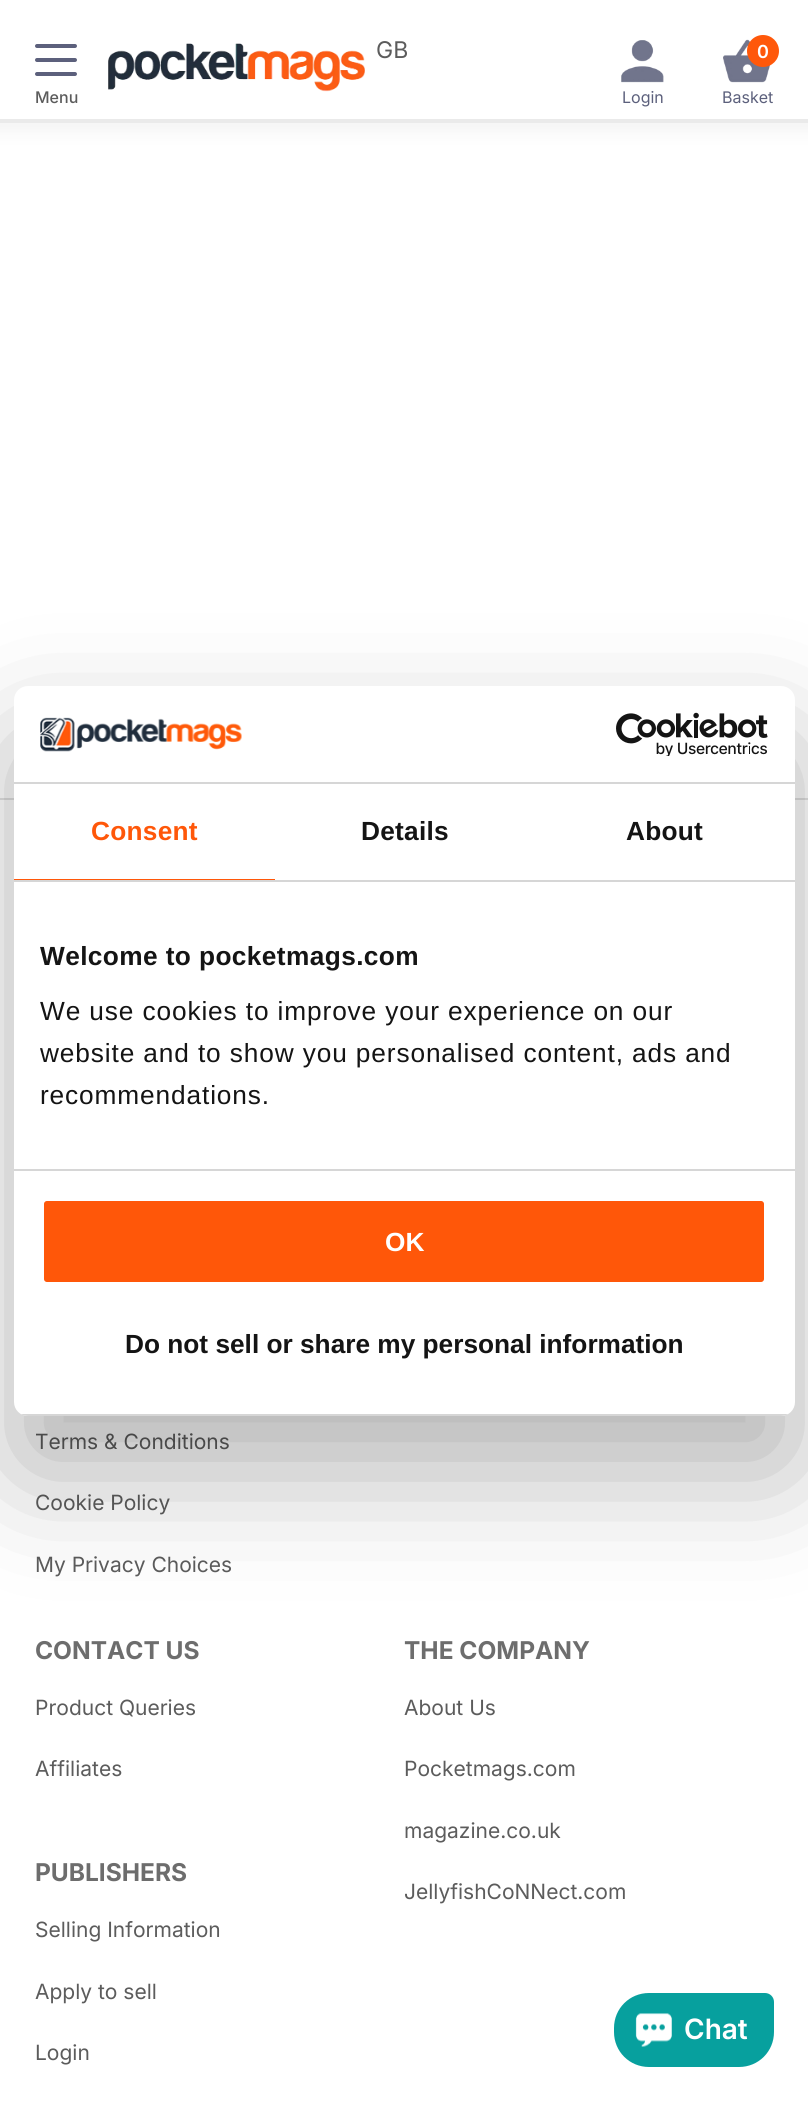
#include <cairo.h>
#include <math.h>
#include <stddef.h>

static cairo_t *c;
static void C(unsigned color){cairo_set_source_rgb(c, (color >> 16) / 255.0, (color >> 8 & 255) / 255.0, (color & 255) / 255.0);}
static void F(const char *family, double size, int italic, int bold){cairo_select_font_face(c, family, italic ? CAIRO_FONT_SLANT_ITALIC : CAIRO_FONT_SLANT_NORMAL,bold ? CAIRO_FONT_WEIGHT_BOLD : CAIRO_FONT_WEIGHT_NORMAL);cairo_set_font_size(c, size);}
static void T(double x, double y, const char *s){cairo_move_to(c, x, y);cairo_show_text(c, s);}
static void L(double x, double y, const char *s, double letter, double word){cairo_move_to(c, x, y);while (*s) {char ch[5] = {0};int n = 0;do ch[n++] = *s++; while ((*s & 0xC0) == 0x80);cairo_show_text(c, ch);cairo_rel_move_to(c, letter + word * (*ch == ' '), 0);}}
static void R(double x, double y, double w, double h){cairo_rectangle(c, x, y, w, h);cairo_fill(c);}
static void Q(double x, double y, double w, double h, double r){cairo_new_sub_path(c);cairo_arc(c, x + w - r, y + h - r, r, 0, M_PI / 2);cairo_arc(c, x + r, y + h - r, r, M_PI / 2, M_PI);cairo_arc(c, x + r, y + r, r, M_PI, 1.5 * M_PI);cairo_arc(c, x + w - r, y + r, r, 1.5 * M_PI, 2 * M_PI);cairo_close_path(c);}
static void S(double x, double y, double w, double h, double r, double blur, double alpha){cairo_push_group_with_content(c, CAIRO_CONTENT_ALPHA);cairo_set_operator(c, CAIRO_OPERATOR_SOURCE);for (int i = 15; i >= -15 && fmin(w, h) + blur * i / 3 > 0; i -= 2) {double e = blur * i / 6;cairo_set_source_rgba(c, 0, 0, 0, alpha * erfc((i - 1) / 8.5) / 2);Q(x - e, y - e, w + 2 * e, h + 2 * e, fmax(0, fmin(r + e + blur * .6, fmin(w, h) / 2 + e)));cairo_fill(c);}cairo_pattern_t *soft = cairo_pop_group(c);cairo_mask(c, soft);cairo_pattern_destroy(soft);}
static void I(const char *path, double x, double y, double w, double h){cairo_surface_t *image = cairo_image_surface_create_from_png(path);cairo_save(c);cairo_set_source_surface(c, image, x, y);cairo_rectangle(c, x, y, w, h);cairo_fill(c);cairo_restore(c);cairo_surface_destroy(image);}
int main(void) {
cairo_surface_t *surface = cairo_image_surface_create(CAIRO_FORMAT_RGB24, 808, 2101);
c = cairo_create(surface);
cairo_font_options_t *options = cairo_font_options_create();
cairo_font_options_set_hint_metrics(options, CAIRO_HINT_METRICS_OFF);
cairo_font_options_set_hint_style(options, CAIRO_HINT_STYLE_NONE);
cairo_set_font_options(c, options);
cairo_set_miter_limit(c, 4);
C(0xffffff);
cairo_paint(c);
C(0x000000);
S(-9,-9,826,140,0,9,.05);
C(0xffffff);
R(0,0,808,119);
C(0xeaeaea);
R(0,119,808,4);
C(0x5c607c);
Q(35,44,42,4,2);
cairo_fill(c);
Q(35,58,42,4,2);
cairo_fill(c);
Q(35,72,42,4,2);
cairo_fill(c);
F("Inter Medium",16,0,0);
C(0x5c5c5c);
T(35,103,"Menu");
I("1.png",108,43,257,49);
F("Inter",23,0,0);
T(376,58,"GB");
I("2.png",621,40,43,43);
F("Inter",16,0,0);
C(0x5c607c);
T(622,103,"Login");
I("3.png",723,39,48,44);
C(0xff580a);
cairo_arc(c,763,51,16,0,2 * M_PI);
cairo_fill(c);
F("Inter SemiBold",18,0,0);
C(0xffffff);
T(757,58,"0");
F("Inter",16,0,0);
C(0x5c607c);
T(722,103,"Basket");
C(0xe1e1e1);
R(0,798,808,2);
F("Inter",21,0,0);
C(0x5c5c5c);
T(35,1449,"Terms & Conditions");
T(35,1510,"Cookie Policy");
T(35,1572,"My Privacy Choices");
F("Inter",24.5,0,1);
C(0x6d6d6d);
T(35,1659,"CONTACT US");
F("Inter",21,0,0);
C(0x5c5c5c);
T(35,1715,"Product Queries");
T(35,1776,"Affiliates");
F("Inter",24.5,0,1);
C(0x6d6d6d);
T(35,1881,"PUBLISHERS");
F("Inter",21,0,0);
C(0x5c5c5c);
T(35,1937,"Selling Information");
T(35,1999,"Apply to sell");
T(35,2060,"Login");
F("Inter",24.5,0,1);
C(0x6d6d6d);
T(404,1659,"THE COMPANY");
F("Inter",21,0,0);
C(0x5c5c5c);
T(404,1715,"About Us");
T(404,1776,"Pocketmags.com");
T(404,1838,"magazine.co.uk");
T(404,1899,"JellyfishCoNNect.com");
C(0x07a09e);
cairo_new_path(c);
cairo_move_to(c,649,1993);
cairo_line_to(c,765,1993);
cairo_curve_to(c,770,1993,774,1997,774,2002);
cairo_line_to(c,774,2032);
cairo_curve_to(c,774,2051.5,758.5,2067,739,2067);
cairo_line_to(c,649,2067);
cairo_curve_to(c,629.5,2067,614,2051.5,614,2032);
cairo_line_to(c,614,2028);
cairo_curve_to(c,614,2008.5,629.5,1993,649,1993);
cairo_close_path(c);
cairo_fill(c);
I("4.png",635,2013,37,34);
F("Inter SemiBold",28,0,0);
C(0xffffff);
T(684,2039,"Chat");
C(0x000000);
S(14,742,781,730,14,59.5,.3);
C(0xffffff);
Q(14,686,781,730,14);
cairo_fill(c);
C(0xd6d6d6);
R(14,782,781,2);
I("5.png",40,717,202,35);
I("6.png",616,712,152,44);
R(14,880,781,2);
C(0xff5709);
R(14,879,261,1);
F("Liberation Sans",26.25,0,1);
L(91,840,"Consent",.25,0);
C(0x141414);
L(361,840,"Details",.25,0);
L(626,840,"About",.25,0);
C(0xd6d6d6);
R(14,1169,781,2);
C(0x141414);
L(40,965,"Welcome to pocketmags.com",.4,0);
F("Liberation Sans",26.25,0,0);
L(40,1020,"We use cookies to improve your experience on our",.88,0);
L(40,1062,"website and to show you personalised content, ads and",.88,0);
L(40,1104,"recommendations.",.88,0);
cairo_save(c);
Q(14,686,781,730,14);
cairo_clip(c);
C(0xd6d6d6);
R(14,1414,781,2);
cairo_restore(c);
C(0xff5709);
Q(42,1199,724,85,5);
cairo_fill_preserve(c);
C(0xffffff);
cairo_set_line_width(c,4);
cairo_stroke(c);
F("Liberation Sans",26.25,0,1);
T(385,1251,"OK");
C(0x141414);
T(125,1353,"Do not sell or share my personal information");
cairo_surface_write_to_png(surface, "o.png");
cairo_font_options_destroy(options);
cairo_destroy(c);
cairo_surface_destroy(surface);
return 0;
}
